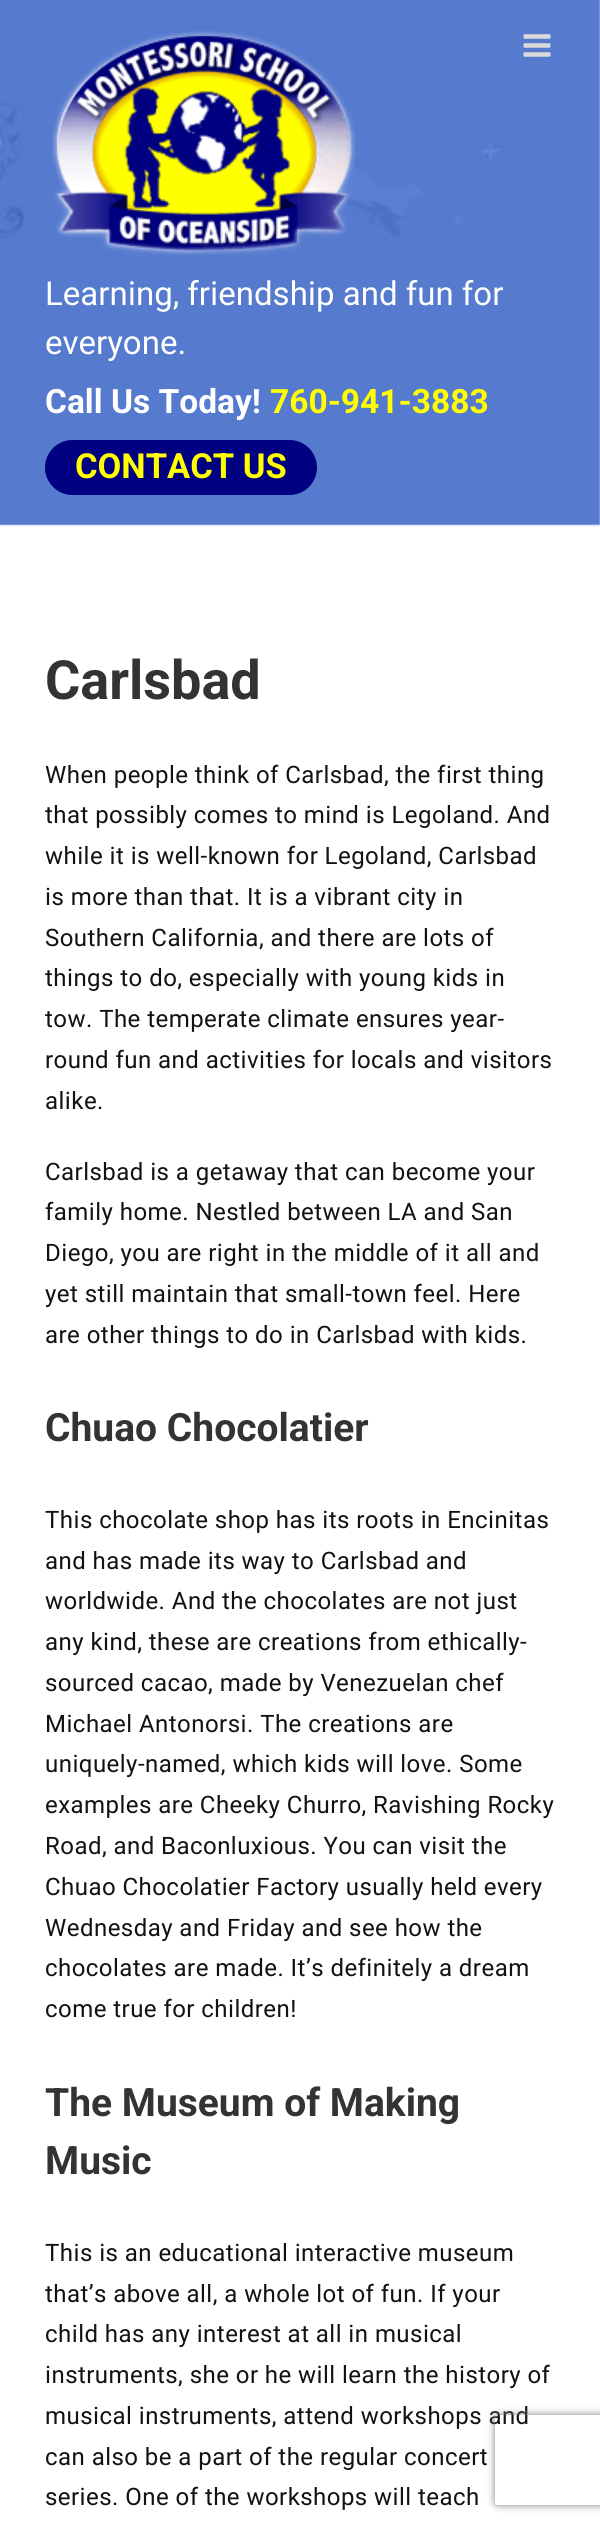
#include <cairo.h>
#include <math.h>
#include <stddef.h>

static cairo_t *c;
static void C(unsigned color){cairo_set_source_rgb(c, (color >> 16) / 255.0, (color >> 8 & 255) / 255.0, (color & 255) / 255.0);}
static void F(const char *family, double size, int italic, int bold){cairo_select_font_face(c, family, italic ? CAIRO_FONT_SLANT_ITALIC : CAIRO_FONT_SLANT_NORMAL,bold ? CAIRO_FONT_WEIGHT_BOLD : CAIRO_FONT_WEIGHT_NORMAL);cairo_set_font_size(c, size);}
static void T(double x, double y, const char *s){cairo_move_to(c, x, y);cairo_show_text(c, s);}
static void L(double x, double y, const char *s, double letter, double word){cairo_move_to(c, x, y);while (*s) {char ch[5] = {0};int n = 0;do ch[n++] = *s++; while ((*s & 0xC0) == 0x80);cairo_show_text(c, ch);cairo_rel_move_to(c, letter + word * (*ch == ' '), 0);}}
static void Q(double x, double y, double w, double h, double r){cairo_new_sub_path(c);cairo_arc(c, x + w - r, y + h - r, r, 0, M_PI / 2);cairo_arc(c, x + r, y + h - r, r, M_PI / 2, M_PI);cairo_arc(c, x + r, y + r, r, M_PI, 1.5 * M_PI);cairo_arc(c, x + w - r, y + r, r, 1.5 * M_PI, 2 * M_PI);cairo_close_path(c);}
static void S(double x, double y, double w, double h, double r, double blur, double alpha){cairo_push_group_with_content(c, CAIRO_CONTENT_ALPHA);cairo_set_operator(c, CAIRO_OPERATOR_SOURCE);for (int i = 15; i >= -15 && fmin(w, h) + blur * i / 3 > 0; i -= 2) {double e = blur * i / 6;cairo_set_source_rgba(c, 0, 0, 0, alpha * erfc((i - 1) / 8.5) / 2);Q(x - e, y - e, w + 2 * e, h + 2 * e, fmax(0, fmin(r + e + blur * .6, fmin(w, h) / 2 + e)));cairo_fill(c);}cairo_pattern_t *soft = cairo_pop_group(c);cairo_mask(c, soft);cairo_pattern_destroy(soft);}
static void I(const char *path, double x, double y, double w, double h){cairo_surface_t *image = cairo_image_surface_create_from_png(path);cairo_save(c);cairo_set_source_surface(c, image, x, y);cairo_rectangle(c, x, y, w, h);cairo_fill(c);cairo_restore(c);cairo_surface_destroy(image);}
int main(void) {
cairo_surface_t *surface = cairo_image_surface_create(CAIRO_FORMAT_RGB24, 600, 2525);
c = cairo_create(surface);
cairo_font_options_t *options = cairo_font_options_create();
cairo_font_options_set_hint_metrics(options, CAIRO_HINT_METRICS_OFF);
cairo_font_options_set_hint_style(options, CAIRO_HINT_STYLE_NONE);
cairo_set_font_options(c, options);
cairo_set_miter_limit(c, 4);
C(0xffffff);
cairo_paint(c);
I("1.png",0,0,600,527);
I("2.png",523,34,28,23);
I("3.png",52,31,304,224);
F("Heebo",33,0,0);
C(0xffffff);
T(45,305,"Learning, friendship and fun for");
T(45,354,"everyone.");
F("Roboto",33.5,0,1);
T(45,413,"Call Us Today!");
C(0xffff00);
T(270,413,"760-941-3883");
C(0x000080);
Q(45,440,272,55,27.5);
cairo_fill(c);
F("Roboto",34.5,0,1);
C(0xffff00);
T(75,478,"CONTACT US");
F("Roboto",54,0,1);
C(0x333333);
T(45,699,"Carlsbad");
F("Heebo",24,0,0);
C(0x121212);
L(45,783,"When people think of Carlsbad, the first thing",.45,0);
L(45,823,"that possibly comes to mind is Legoland. And",.45,0);
L(45,864,"while it is well-known for Legoland, Carlsbad",.45,0);
L(45,905,"is more than that. It is a vibrant city in",.45,0);
L(45,946,"Southern California, and there are lots of",.45,0);
L(45,986,"things to do, especially with young kids in",.45,0);
L(45,1027,"tow. The temperate climate ensures year-",.45,0);
L(45,1068,"round fun and activities for locals and visitors",.45,0);
L(45,1109,"alike.",.45,0);
L(45,1180,"Carlsbad is a getaway that can become your",.45,0);
L(45,1220,"family home. Nestled between LA and San",.45,0);
L(45,1261,"Diego, you are right in the middle of it all and",.45,0);
L(45,1302,"yet still maintain that small-town feel. Here",.45,0);
L(45,1343,"are other things to do in Carlsbad with kids.",.45,0);
F("Roboto",39,0,1);
C(0x333333);
T(45,1441,"Chuao Chocolatier");
F("Heebo",24,0,0);
C(0x121212);
L(45,1528,"This chocolate shop has its roots in Encinitas",.45,0);
L(45,1569,"and has made its way to Carlsbad and",.45,0);
L(45,1609,"worldwide. And the chocolates are not just",.45,0);
L(45,1650,"any kind, these are creations from ethically-",.45,0);
L(45,1691,"sourced cacao, made by Venezuelan chef",.45,0);
L(45,1732,"Michael Antonorsi. The creations are",.45,0);
L(45,1772,"uniquely-named, which kids will love. Some",.45,0);
L(45,1813,"examples are Cheeky Churro, Ravishing Rocky",.45,0);
L(45,1854,"Road, and Baconluxious. You can visit the",.45,0);
L(45,1895,"Chuao Chocolatier Factory usually held every",.45,0);
L(45,1936,"Wednesday and Friday and see how the",.45,0);
L(45,1976,"chocolates are made. It’s definitely a dream",.45,0);
L(45,2017,"come true for children!",.45,0);
F("Roboto",39,0,1);
C(0x333333);
T(45,2116,"The Museum of Making");
T(45,2174,"Music");
F("Heebo",24,0,0);
C(0x121212);
L(45,2261,"This is an educational interactive museum",.45,0);
L(45,2302,"that’s above all, a whole lot of fun. If your",.45,0);
L(45,2342,"child has any interest at all in musical",.45,0);
L(45,2383,"instruments, she or he will learn the history of",.45,0);
L(45,2424,"musical instruments, attend workshops and",.45,0);
L(45,2465,"can also be a part of the regular concert",.45,0);
L(45,2505,"series. One of the workshops will teach",.45,0);
cairo_save(c);
cairo_set_fill_rule(c,CAIRO_FILL_RULE_EVEN_ODD);
cairo_new_path(c);
cairo_move_to(c,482,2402);
cairo_line_to(c,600,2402);
cairo_line_to(c,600,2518);
cairo_line_to(c,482,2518);
cairo_close_path(c);
cairo_move_to(c,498,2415);
cairo_line_to(c,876,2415);
cairo_curve_to(c,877.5,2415,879,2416.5,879,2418);
cairo_line_to(c,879,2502);
cairo_curve_to(c,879,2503.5,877.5,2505,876,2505);
cairo_line_to(c,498,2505);
cairo_curve_to(c,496.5,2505,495,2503.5,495,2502);
cairo_line_to(c,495,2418);
cairo_curve_to(c,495,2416.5,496.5,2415,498,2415);
cairo_close_path(c);
cairo_clip(c);
C(0x808080);
S(495,2415,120,90,3,4,1);
cairo_restore(c);
cairo_surface_write_to_png(surface, "o.png");
cairo_font_options_destroy(options);
cairo_destroy(c);
cairo_surface_destroy(surface);
return 0;
}
